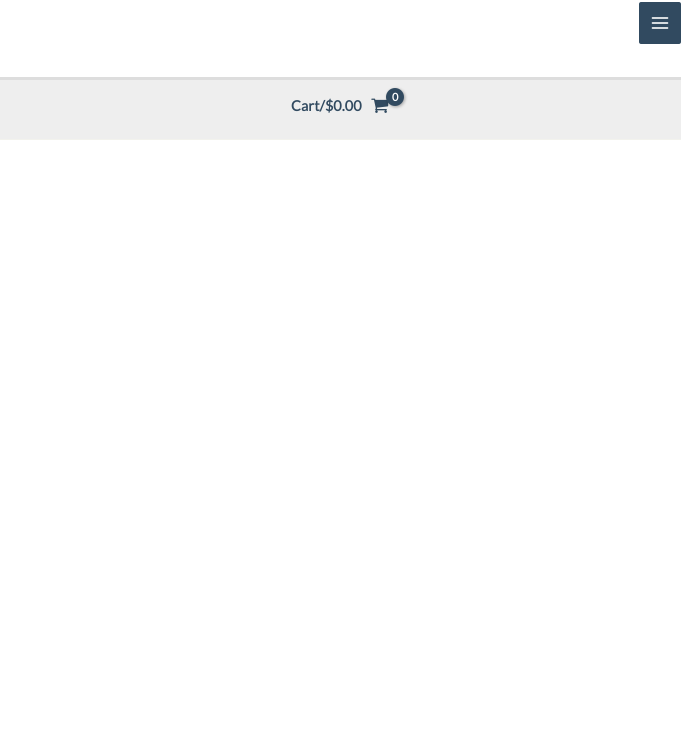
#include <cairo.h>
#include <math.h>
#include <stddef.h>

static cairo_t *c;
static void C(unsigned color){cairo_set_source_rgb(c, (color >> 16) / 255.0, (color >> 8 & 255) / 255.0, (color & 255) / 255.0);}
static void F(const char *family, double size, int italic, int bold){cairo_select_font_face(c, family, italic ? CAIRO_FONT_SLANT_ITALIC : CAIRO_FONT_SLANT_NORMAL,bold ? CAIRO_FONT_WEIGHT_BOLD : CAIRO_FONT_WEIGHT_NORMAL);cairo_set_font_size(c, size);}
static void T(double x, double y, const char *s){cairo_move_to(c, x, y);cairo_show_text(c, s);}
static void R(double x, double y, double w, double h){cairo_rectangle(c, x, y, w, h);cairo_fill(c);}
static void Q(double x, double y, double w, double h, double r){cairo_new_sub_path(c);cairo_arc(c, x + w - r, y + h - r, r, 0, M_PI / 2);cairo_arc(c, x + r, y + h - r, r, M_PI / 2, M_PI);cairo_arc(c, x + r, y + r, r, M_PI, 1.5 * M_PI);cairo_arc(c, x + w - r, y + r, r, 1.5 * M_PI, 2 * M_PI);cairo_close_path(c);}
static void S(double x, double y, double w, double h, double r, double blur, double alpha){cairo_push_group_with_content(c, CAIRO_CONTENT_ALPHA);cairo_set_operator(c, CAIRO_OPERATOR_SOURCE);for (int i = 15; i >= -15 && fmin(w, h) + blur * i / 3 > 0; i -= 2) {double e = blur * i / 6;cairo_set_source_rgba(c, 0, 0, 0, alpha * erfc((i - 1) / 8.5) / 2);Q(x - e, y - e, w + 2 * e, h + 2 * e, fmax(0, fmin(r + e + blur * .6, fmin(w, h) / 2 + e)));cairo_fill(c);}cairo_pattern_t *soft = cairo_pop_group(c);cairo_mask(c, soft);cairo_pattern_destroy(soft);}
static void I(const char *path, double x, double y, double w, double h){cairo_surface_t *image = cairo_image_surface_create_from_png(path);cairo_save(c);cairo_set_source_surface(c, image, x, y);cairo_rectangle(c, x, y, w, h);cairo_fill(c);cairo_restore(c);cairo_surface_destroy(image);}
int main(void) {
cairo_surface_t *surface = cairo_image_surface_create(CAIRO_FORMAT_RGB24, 681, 735);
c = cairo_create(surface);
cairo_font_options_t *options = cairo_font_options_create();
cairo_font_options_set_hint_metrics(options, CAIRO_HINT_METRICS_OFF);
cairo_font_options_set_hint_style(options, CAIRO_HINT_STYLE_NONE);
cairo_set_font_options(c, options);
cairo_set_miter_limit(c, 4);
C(0xffffff);
cairo_paint(c);
C(0xdddddd);
R(0,77,681,3);
C(0x314a60);
Q(639,2,42,42,2);
cairo_fill(c);
I("1.png",651,17,18,12);
C(0xeeeeee);
R(0,80,681,59);
C(0xf2f2ed);
R(0,139,681,1);
I("2.png",371,98,18,15);
C(0x000000);
S(387,89,18,18,9,1.5,.3);
C(0x314a60);
cairo_arc(c,395,97,9,0,2 * M_PI);
cairo_fill(c);
F("Lato",11,0,1);
C(0xffffff);
T(392,101,"0");
F("Lato",14.5,0,1);
C(0x314a60);
T(291,111,"Cart/$0.00");
cairo_surface_write_to_png(surface, "o.png");
cairo_font_options_destroy(options);
cairo_destroy(c);
cairo_surface_destroy(surface);
return 0;
}
